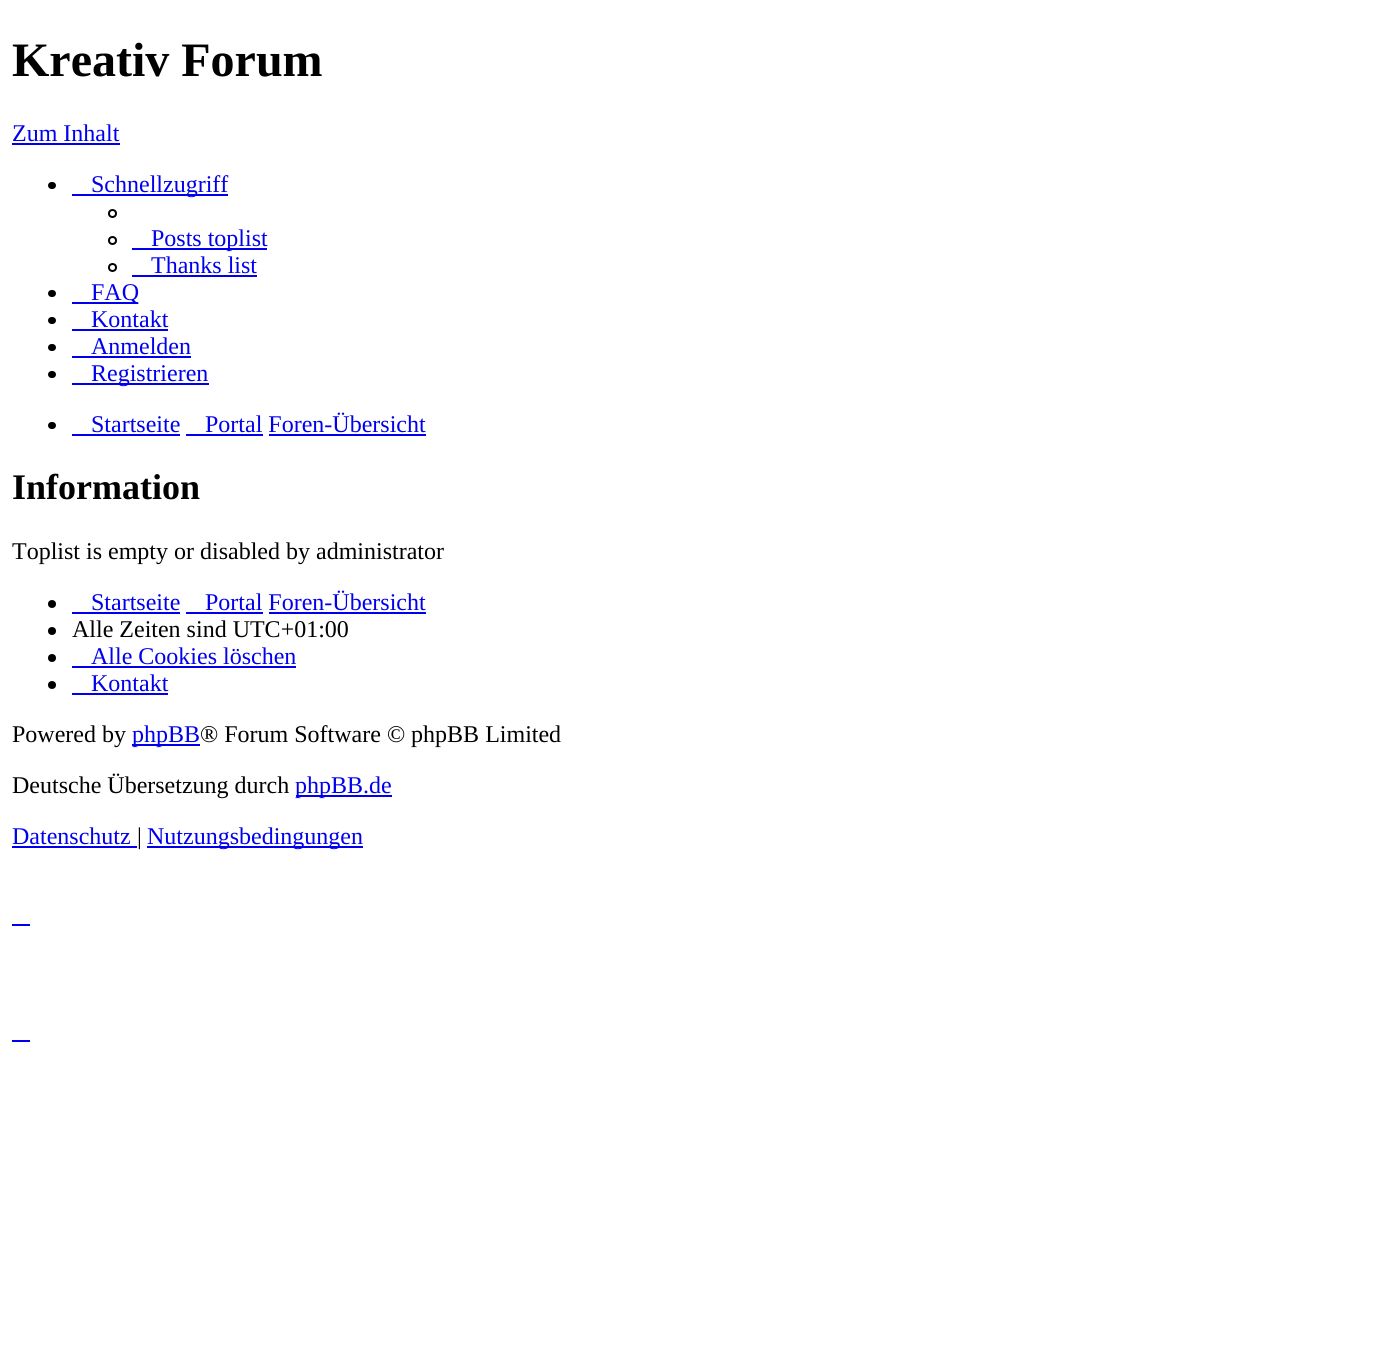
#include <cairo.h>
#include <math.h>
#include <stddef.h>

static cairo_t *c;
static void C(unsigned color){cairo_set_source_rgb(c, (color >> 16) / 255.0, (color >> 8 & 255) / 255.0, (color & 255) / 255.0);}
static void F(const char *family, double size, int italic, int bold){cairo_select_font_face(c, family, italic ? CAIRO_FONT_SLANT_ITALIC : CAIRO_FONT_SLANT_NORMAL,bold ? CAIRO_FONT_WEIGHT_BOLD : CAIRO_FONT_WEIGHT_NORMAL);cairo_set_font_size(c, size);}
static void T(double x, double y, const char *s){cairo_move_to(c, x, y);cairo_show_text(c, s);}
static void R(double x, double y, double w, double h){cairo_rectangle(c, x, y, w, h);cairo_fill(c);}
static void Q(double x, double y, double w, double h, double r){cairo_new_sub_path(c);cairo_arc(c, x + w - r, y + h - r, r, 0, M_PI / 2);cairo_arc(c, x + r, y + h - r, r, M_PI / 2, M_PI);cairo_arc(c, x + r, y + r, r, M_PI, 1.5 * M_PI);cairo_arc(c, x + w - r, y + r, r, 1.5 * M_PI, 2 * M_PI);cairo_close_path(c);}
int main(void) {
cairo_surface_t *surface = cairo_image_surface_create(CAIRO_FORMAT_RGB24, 1384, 1346);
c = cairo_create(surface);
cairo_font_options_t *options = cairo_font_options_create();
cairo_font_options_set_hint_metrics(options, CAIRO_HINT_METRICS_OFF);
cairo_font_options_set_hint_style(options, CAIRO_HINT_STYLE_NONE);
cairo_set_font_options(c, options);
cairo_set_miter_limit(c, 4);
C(0xffffff);
cairo_paint(c);
F("Liberation Serif",48,0,1);
C(0x000000);
T(12,76,"Kreativ Forum");
F("Liberation Serif",24,0,0);
C(0x0000ee);
T(12,141,"Zum Inhalt");
R(12,143,108,2);
C(0x000000);
Q(48,182,8,7,3.5);
cairo_fill(c);
C(0x0000ee);
R(72,194,156,2);
T(91,192,"Schnellzugriff");
cairo_new_path(c);
cairo_arc(c,112.5,213.5,3.5,0,2 * M_PI);
C(0x000000);
cairo_stroke(c);
cairo_arc(c,112.5,240.5,3.5,0,2 * M_PI);
cairo_stroke(c);
C(0x0000ee);
R(132,248,135,2);
T(151,246,"Posts toplist");
cairo_new_path(c);
cairo_arc(c,112.5,267.5,3.5,0,2 * M_PI);
C(0x000000);
cairo_stroke(c);
C(0x0000ee);
T(151,273,"Thanks list");
R(132,275,125,2);
C(0x000000);
Q(48,290,8,7,3.5);
cairo_fill(c);
C(0x0000ee);
R(72,302,66,2);
T(91,300,"FAQ");
C(0x000000);
Q(48,317,8,7,3.5);
cairo_fill(c);
C(0x0000ee);
T(91,327,"Kontakt");
R(72,329,96,2);
C(0x000000);
Q(48,344,8,7,3.5);
cairo_fill(c);
C(0x0000ee);
T(91,354,"Anmelden");
R(72,356,119,2);
C(0x000000);
Q(48,371,8,7,3.5);
cairo_fill(c);
C(0x0000ee);
R(72,383,137,2);
T(91,381,"Registrieren");
C(0x000000);
Q(48,422,8,7,3.5);
cairo_fill(c);
C(0x0000ee);
T(91,432,"Startseite");
R(72,434,108,2);
T(205,432,"Portal Foren-Übersicht");
R(186,434,77,2);
R(269,434,157,2);
F("Liberation Serif",36,0,1);
C(0x000000);
T(12,499,"Information");
F("Liberation Serif",24,0,0);
T(12,559,"Toplist is empty or disabled by administrator");
cairo_new_path(c);
cairo_arc(c,52,604,4,0,2 * M_PI);
cairo_fill(c);
C(0x0000ee);
T(91,610,"Startseite");
R(72,612,108,2);
T(205,610,"Portal Foren-Übersicht");
R(186,612,77,2);
R(269,612,157,2);
C(0x000000);
cairo_new_path(c);
cairo_arc(c,52,631,4,0,2 * M_PI);
cairo_fill(c);
T(72,637,"Alle Zeiten sind UTC+01:00");
cairo_new_path(c);
cairo_arc(c,52,658,4,0,2 * M_PI);
cairo_fill(c);
C(0x0000ee);
T(91,664,"Alle Cookies löschen");
R(72,666,224,2);
C(0x000000);
cairo_new_path(c);
cairo_arc(c,52,685,4,0,2 * M_PI);
cairo_fill(c);
C(0x0000ee);
T(91,691,"Kontakt");
R(72,693,96,2);
C(0x000000);
T(12,742,"Powered by");
C(0x0000ee);
R(132,744,68,2);
T(132,742,"phpBB");
C(0x000000);
T(200,742,"® Forum Software © phpBB Limited");
T(12,793,"Deutsche Übersetzung durch");
C(0x0000ee);
R(296,795,96,2);
T(295,793,"phpBB.de");
T(12,844,"Datenschutz");
R(12,846,125,2);
C(0x000000);
T(137,844,"|");
C(0x0000ee);
R(147,846,216,2);
T(147,844,"Nutzungsbedingungen");
R(12,924,18,2);
R(12,1040,18,2);
cairo_surface_write_to_png(surface, "o.png");
cairo_font_options_destroy(options);
cairo_destroy(c);
cairo_surface_destroy(surface);
return 0;
}
